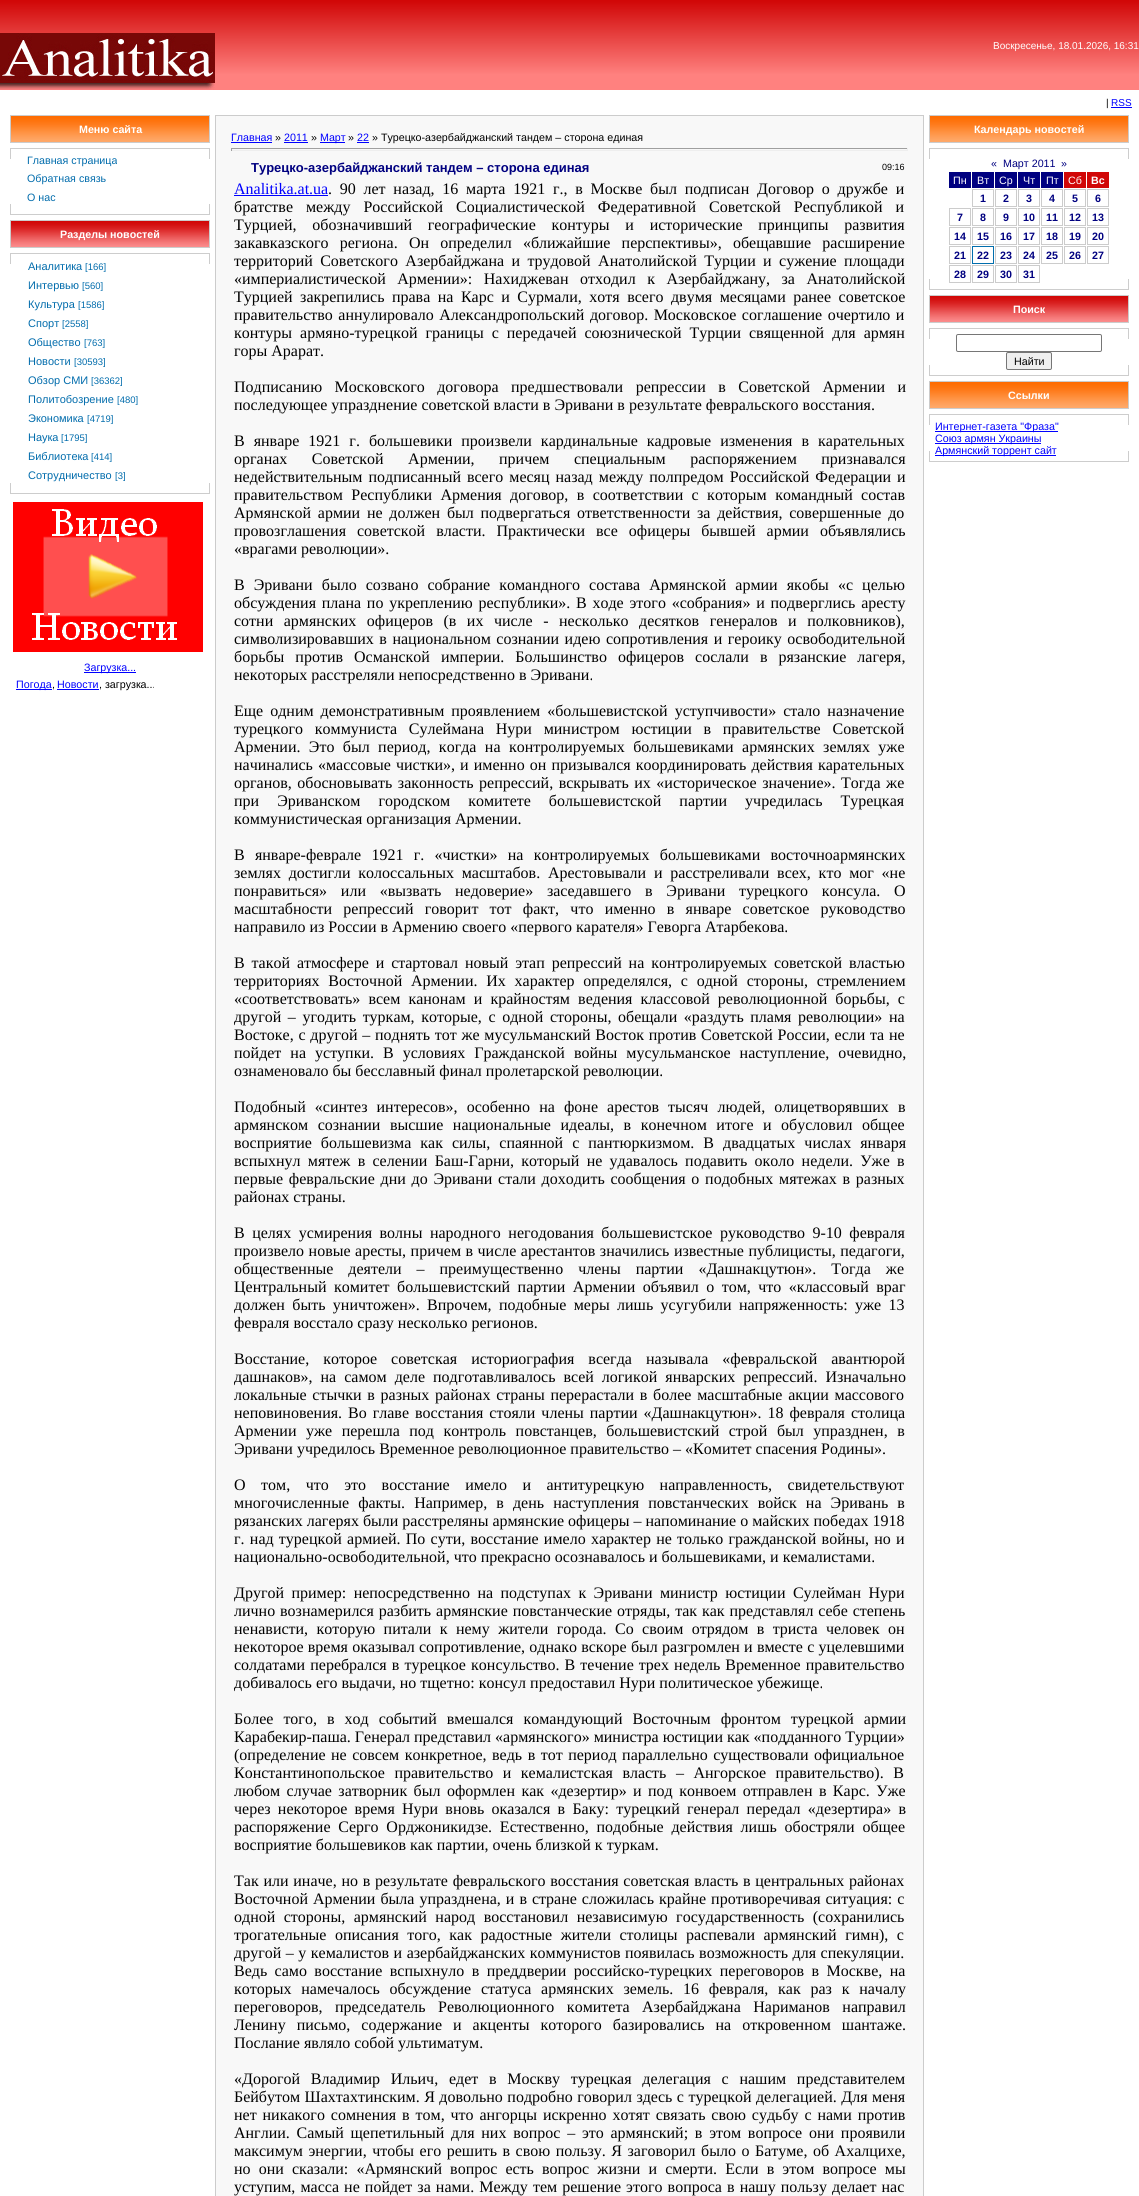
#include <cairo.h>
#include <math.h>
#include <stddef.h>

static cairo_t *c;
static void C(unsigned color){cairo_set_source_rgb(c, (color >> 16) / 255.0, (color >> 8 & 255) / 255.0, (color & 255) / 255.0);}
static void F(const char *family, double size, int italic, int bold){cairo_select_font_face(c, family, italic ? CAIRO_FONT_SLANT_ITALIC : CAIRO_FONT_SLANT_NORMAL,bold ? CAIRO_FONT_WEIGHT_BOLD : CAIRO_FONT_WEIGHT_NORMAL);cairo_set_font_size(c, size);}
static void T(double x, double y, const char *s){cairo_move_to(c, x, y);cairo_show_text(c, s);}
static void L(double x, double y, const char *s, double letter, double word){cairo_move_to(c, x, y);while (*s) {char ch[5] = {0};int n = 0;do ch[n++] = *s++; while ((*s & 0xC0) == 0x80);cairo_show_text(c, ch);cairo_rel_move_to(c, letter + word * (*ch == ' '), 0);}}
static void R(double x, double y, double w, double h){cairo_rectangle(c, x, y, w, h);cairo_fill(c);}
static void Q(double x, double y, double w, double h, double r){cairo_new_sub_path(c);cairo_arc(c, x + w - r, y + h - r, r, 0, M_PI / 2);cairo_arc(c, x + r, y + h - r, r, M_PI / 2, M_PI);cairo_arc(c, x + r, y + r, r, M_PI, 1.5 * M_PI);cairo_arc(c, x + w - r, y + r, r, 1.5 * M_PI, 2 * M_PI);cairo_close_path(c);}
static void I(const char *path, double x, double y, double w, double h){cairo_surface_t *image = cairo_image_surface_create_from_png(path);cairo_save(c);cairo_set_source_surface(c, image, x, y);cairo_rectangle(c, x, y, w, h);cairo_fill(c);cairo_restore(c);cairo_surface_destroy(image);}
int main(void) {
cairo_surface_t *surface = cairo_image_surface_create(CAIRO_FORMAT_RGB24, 1139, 2196);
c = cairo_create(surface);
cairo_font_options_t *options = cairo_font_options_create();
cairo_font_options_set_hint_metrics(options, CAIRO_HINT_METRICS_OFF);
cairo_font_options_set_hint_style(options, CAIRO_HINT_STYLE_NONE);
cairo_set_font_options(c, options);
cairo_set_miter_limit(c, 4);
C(0xffffff);
cairo_paint(c);
I("1.png",0,0,1139,90);
I("2.png",0,33,215,57);
F("Liberation Sans",10,0,0);
C(0xffffff);
T(993,49,"Воскресенье, 18.01.2026, 16:31");
C(0x000000);
T(1106,106,"|");
C(0x0000ff);
T(1111,106,"RSS");
R(1111,107,21,1);
I("3.png",11,116,198,26);
cairo_rectangle(c,10.5,115.5,199,27);
C(0xcccccc);
cairo_set_line_width(c,1);
cairo_stroke(c);
F("Liberation Sans",10.7,0,1);
C(0xffffff);
T(79,133,"Меню сайта");
C(0xcdcdcd);
R(10,204,1,11);
R(10,148,1,11);
R(11,148,198,1);
R(11,214,198,1);
F("Liberation Sans",10.7,0,0);
C(0x016cac);
T(27,164,"Главная страница");
T(27,182,"Обратная связь");
T(27,201,"О нас");
C(0xcdcdcd);
R(209,204,1,11);
R(209,148,1,11);
I("4.png",11,221,198,26);
cairo_rectangle(c,10.5,220.5,199,27);
C(0xcccccc);
cairo_stroke(c);
F("Liberation Sans",10.7,0,1);
C(0xffffff);
T(60,238,"Разделы новостей");
C(0xcdcdcd);
R(10,483,1,11);
R(10,253,1,11);
R(11,253,198,1);
R(11,493,198,1);
F("Liberation Sans",11,0,0);
C(0x016cac);
T(28,270,"Аналитика");
F("Liberation Sans",9.5,0,0);
T(85,270,"[166]");
F("Liberation Sans",11,0,0);
T(28,289,"Интервью");
F("Liberation Sans",9.5,0,0);
T(82,289,"[560]");
F("Liberation Sans",11,0,0);
T(28,308,"Культура");
F("Liberation Sans",9.5,0,0);
T(78,308,"[1586]");
F("Liberation Sans",11,0,0);
T(28,327,"Спорт");
F("Liberation Sans",9.5,0,0);
T(62,327,"[2558]");
F("Liberation Sans",11,0,0);
T(28,346,"Общество");
F("Liberation Sans",9.5,0,0);
T(84,346,"[763]");
F("Liberation Sans",11,0,0);
T(28,365,"Новости");
F("Liberation Sans",9.5,0,0);
T(74,365,"[30593]");
F("Liberation Sans",11,0,0);
T(28,384,"Обзор СМИ");
F("Liberation Sans",9.5,0,0);
T(91,384,"[36362]");
F("Liberation Sans",11,0,0);
T(28,403,"Политобозрение");
F("Liberation Sans",9.5,0,0);
T(117,403,"[480]");
F("Liberation Sans",11,0,0);
T(28,422,"Экономика");
F("Liberation Sans",9.5,0,0);
T(87,422,"[4719]");
F("Liberation Sans",11,0,0);
T(28,441,"Наука");
F("Liberation Sans",9.5,0,0);
T(61,441,"[1795]");
F("Liberation Sans",11,0,0);
T(28,460,"Библиотека");
F("Liberation Sans",9.5,0,0);
T(91,460,"[414]");
F("Liberation Sans",11,0,0);
T(28,479,"Сотрудничество");
F("Liberation Sans",9.5,0,0);
T(115,479,"[3]");
C(0xcdcdcd);
R(209,483,1,11);
R(209,253,1,11);
I("5.png",13,502,190,150);
C(0x0000ff);
R(84,672,52,1);
F("Liberation Sans",10.7,0,0);
T(84,671,"Загрузка...");
R(16,689,36,1);
T(16,688,"Погода");
C(0x000000);
T(52,688,",");
C(0x0000ff);
T(57,688,"Новости");
R(57,689,42,1);
C(0x000000);
T(99,688,", загрузка...");
cairo_rectangle(c,215.5,115.5,708,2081);
C(0xcccccc);
cairo_stroke(c);
C(0xf8f8f8);
R(216,116,707,2080);
C(0x0000ff);
T(231,141,"Главная");
R(231,142,41,1);
C(0x000000);
T(275,141,"»");
C(0x0000ff);
T(284,141,"2011");
R(284,142,24,1);
C(0x000000);
T(311,141,"»");
C(0x0000ff);
R(320,142,25,1);
T(320,141,"Март");
C(0x000000);
T(348,141,"»");
C(0x0000ff);
T(357,141,"22");
R(357,142,12,1);
C(0x000000);
T(372,141,"» Турецко-азербайджанский тандем – сторона единая");
C(0x9f9f9f);
R(231,148,677,1);
C(0xeeeeee);
R(907,148,1,3);
R(231,150,677,1);
C(0x9f9f9f);
R(231,148,1,3);
F("Liberation Sans",13,0,1);
C(0x000080);
T(251,172,"Турецко-азербайджанский тандем – сторона единая");
F("Liberation Sans",9,0,0);
C(0x000000);
T(882,170,"09:16");
F("Liberation Serif",16,0,0);
C(0x0000ff);
T(234,194,"Analitika.at.ua");
R(234,195,94,1);
C(0x000000);
L(328,194,". 90 лет назад, 16 марта 1921 г., в Москве был подписан Договор о дружбе и",0,3.75);
L(234,212,"братстве между Российской Социалистической Федеративной Советской Республикой и",0,9);
L(234,230,"Турцией, обозначивший географические контуры и исторические принципы развития",0,11.75);
L(234,248,"закавказского региона. Он определил «ближайшие перспективы», обещавшие расширение",0,7.25);
L(234,266,"территорий Советского Азербайджана и трудовой Анатолийской Турции и сужение площади",0,3.4);
L(234,284,"«империалистической Армении»: Нахиджеван отходил к Азербайджану, за Анатолийской",0,7.5);
L(234,302,"Турцией закрепились права на Карс и Сурмали, хотя всего двумя месяцами ранее советское",0,3.5);
L(234,320,"правительство аннулировало Александропольский договор. Московское соглашение очертило и",0,1.5);
L(234,338,"контуры армяно-турецкой границы с передачей союзнической Турции священной для армян",0,4);
T(234,356,"горы Арарат.");
L(234,392,"Подписанию Московского договора предшествовали репрессии в Советской Армении и",0,8.5);
T(234,410,"последующее упразднение советской власти в Эривани в результате февральского восстания.");
L(234,446,"В январе 1921 г. большевики произвели кардинальные кадровые изменения в карательных",0,5);
L(234,464,"органах Советской Армении, причем специальным распоряжением признавался",0,20.5);
L(234,482,"недействительным подписанный всего месяц назад между полпредом Российской Федерации и",0,2);
L(234,500,"правительством Республики Армения договор, в соответствии с которым командный состав",0,4.4);
L(234,518,"Армянской армии не должен был подвергаться ответственности за действия, совершенные до",0,2.75);
L(234,536,"провозглашения советской власти. Практически все офицеры бывшей армии объявлялись",0,7);
T(234,554,"«врагами революции».");
L(234,590,"В Эривани было созвано собрание командного состава Армянской армии якобы «с целью",0,5.1);
L(234,608,"обсуждения плана по укреплению республики». В ходе этого «собрания» и подверглись аресту",0,1.75);
L(234,626,"сотни армянских офицеров (в их числе - несколько десятков генералов и полковников),",0,6.5);
L(234,644,"символизировавших в национальном сознании идею сопротивления и героику освободительной",0,1.5);
L(234,662,"борьбы против Османской империи. Большинство офицеров сослали в рязанские лагеря,",0,7);
T(234,680,"некоторых расстреляли непосредственно в Эривани.");
L(234,716,"Еще одним демонстративным проявлением «большевистской уступчивости» стало назначение",0,3);
L(234,734,"турецкого коммуниста Сулеймана Нури министром юстиции в правительстве Советской",0,7.75);
L(234,752,"Армении. Это был период, когда на контролируемых большевиками армянских землях уже",0,4.4);
L(234,770,"начинались «массовые чистки», и именно он призывался координировать действия карательных",0,1.1);
L(234,788,"органов, обосновывать законность репрессий, вскрывать их «историческое значение». Тогда же",0,1.5);
L(234,806,"при Эриванском городском комитете большевистской партии учредилась Турецкая",0,14);
T(234,824,"коммунистическая организация Армении.");
L(234,860,"В январе-феврале 1921 г. «чистки» на контролируемых большевиками восточноармянских",0,6.25);
L(234,878,"землях достигли колоссальных масштабов. Арестовывали и расстреливали всех, кто мог «не",0,3.75);
L(234,896,"понравиться» или «вызвать недоверие» заседавшего в Эривани турецкого консула. О",0,9.75);
L(234,914,"масштабности репрессий говорит тот факт, что именно в январе советское руководство",0,7.25);
T(234,932,"направило из России в Армению своего «первого карателя» Геворга Атарбекова.");
L(234,968,"В такой атмосфере и стартовал новый этап репрессий на контролируемых советской властью",0,2.9);
L(234,986,"территориях Восточной Армении. Их характер определялся, с одной стороны, стремлением",0,4.75);
L(234,1004,"«соответствовать» всем канонам и крайностям ведения классовой революционной борьбы, с",0,4.1);
L(234,1022,"другой – угодить туркам, которые, с одной стороны, обещали «раздуть пламя революции» на",0,2.6);
L(234,1040,"Востоке, с другой – поднять тот же мусульманский Восток против Советской России, если та не",0,.75);
L(234,1058,"пойдет на уступки. В условиях Гражданской войны мусульманское наступление, очевидно,",0,5);
T(234,1076,"ознаменовало бы бесславный финал пролетарской революции.");
L(234,1112,"Подобный «синтез интересов», особенно на фоне арестов тысяч людей, олицетворявших в",0,5.1);
L(234,1130,"армянском сознании высшие национальные идеалы, в конечном итоге и обусловил общее",0,5.5);
L(234,1148,"восприятие большевизма как силы, спаянной с пантюркизмом. В двадцатых числах января",0,5);
L(234,1166,"вспыхнул мятеж в селении Баш-Гарни, который не удавалось подавить около недели. Уже в",0,3.25);
L(234,1184,"первые февральские дни до Эривани стали доходить сообщения о подобных мятежах в разных",0,1.75);
T(234,1202,"районах страны.");
L(234,1238,"В целях усмирения волны народного негодования большевистское руководство 9-10 февраля",0,3.5);
L(234,1256,"произвело новые аресты, причем в числе арестантов значились известные публицисты, педагоги,",0,.5);
L(234,1274,"общественные деятели – преимущественно члены партии «Дашнакцутюн». Тогда же",0,11);
L(234,1292,"Центральный комитет большевистский партии Армении объявил о том, что «классовый враг",0,3.5);
L(234,1310,"должен быть уничтожен». Впрочем, подобные меры лишь усугубили напряженность: уже 13",0,3.4);
T(234,1328,"февраля восстало сразу несколько регионов.");
L(234,1364,"Восстание, которое советская историография всегда называла «февральской авантюрой",0,10);
L(234,1382,"дашнаков», на самом деле подготавливалось всей логикой январских репрессий. Изначально",0,4);
L(234,1400,"локальные стычки в разных районах страны перерастали в более масштабные акции массового",0,1.75);
L(234,1418,"неповиновения. Во главе восстания стояли члены партии «Дашнакцутюн». 18 февраля столица",0,2);
L(234,1436,"Армении уже перешла под контроль повстанцев, большевистский строй был упразднен, в",0,5.5);
T(234,1454,"Эривани учредилось Временное революционное правительство – «Комитет спасения Родины».");
L(234,1490,"О том, что это восстание имело и антитурецкую направленность, свидетельствуют",0,11.5);
L(234,1508,"многочисленные факты. Например, в день наступления повстанческих войск на Эривань в",0,5.1);
T(234,1526,"рязанских лагерях были расстреляны армянские офицеры – напоминание о майских победах 1918");
L(234,1544,"г. над турецкой армией. По сути, восстание имело характер не только гражданской войны, но и",0,1.25);
T(234,1562,"национально-освободительной, что прекрасно осознавалось и большевиками, и кемалистами.");
L(234,1598,"Другой пример: непосредственно на подступах к Эривани министр юстиции Сулейман Нури",0,3.4);
L(234,1616,"лично вознамерился разбить армянские повстанческие отряды, так как представлял себе степень",0,.9);
L(234,1634,"ненависти, которую питали к нему жители города. Со своим отрядом в триста человек он",0,4.4);
L(234,1652,"некоторое время оказывал сопротивление, однако вскоре был разгромлен и вместе с уцелевшими",0,.25);
L(234,1670,"солдатами перебрался в турецкое консульство. В течение трех недель Временное правительство",0,1.1);
T(234,1688,"добивалось его выдачи, но тщетно: консул предоставил Нури политическое убежище.");
L(234,1724,"Более того, в ход событий вмешался командующий Восточным фронтом турецкой армии",0,6);
T(234,1742,"Карабекир-паша. Генерал представил «армянского» министра юстиции как «подданного Турции»");
L(234,1760,"(определение не совсем конкретное, ведь в тот период параллельно существовали официальное",0,1.5);
L(234,1778,"Константинопольское правительство и кемалистская власть – Ангорское правительство). В",0,5.5);
L(234,1796,"любом случае затворник был оформлен как «дезертир» и под конвоем отправлен в Карс. Уже",0,2.4);
L(234,1814,"через некоторое время Нури вновь оказался в Баку: турецкий генерал передал «дезертира» в",0,3.25);
L(234,1832,"распоряжение Серго Орджоникидзе. Естественно, подобные действия лишь обостряли общее",0,3.75);
T(234,1850,"восприятие большевиков как партии, очень близкой к туркам.");
L(234,1886,"Так или иначе, но в результате февральского восстания советская власть в центральных районах",0,.75);
L(234,1904,"Восточной Армении была упразднена, и в стране сложилась крайне противоречивая ситуация: с",0,1);
L(234,1922,"одной стороны, армянский народ восстановил независимую государственность (сохранились",0,4.5);
L(234,1940,"трогательные описания того, как радостные жители столицы распевали армянский гимн), с",0,4.5);
L(234,1958,"другой – у кемалистов и азербайджанских коммунистов появилась возможность для спекуляции.",0,.5);
L(234,1976,"Ведь само восстание вспыхнуло в преддверии российско-турецких переговоров в Москве, на",0,3.4);
L(234,1994,"которых намечалось обсуждение статуса армянских земель. 16 февраля, как раз к началу",0,5.75);
L(234,2012,"переговоров, председатель Революционного комитета Азербайджана Нариманов направил",0,8.5);
L(234,2030,"Ленину письмо, содержание и акценты которого базировались на откровенном шантаже.",0,7);
T(234,2048,"Послание являло собой ультиматум.");
L(234,2084,"«Дорогой Владимир Ильич, едет в Москву турецкая делегация с нашим представителем",0,6.75);
L(234,2102,"Бейбутом Шахтахтинским. Я довольно подробно говорил здесь с турецкой делегацией. Для меня",0,.5);
L(234,2120,"нет никакого сомнения в том, что ангорцы искренно хотят связать свою судьбу с нами против",0,1.9);
L(234,2138,"Англии. Самый щепетильный для них вопрос – это армянский; в этом вопросе они проявили",0,2.75);
L(234,2156,"максимум энергии, чтобы его решить в свою пользу. Я заговорил было о Батуме, об Ахалцихе,",0,1.5);
L(234,2174,"но они сказали: «Армянский вопрос есть вопрос жизни и смерти. Если в этом вопросе мы",0,4.1);
L(234,2192,"уступим, масса не пойдет за нами. Между тем решение этого вопроса в нашу пользу делает нас",0,1.1);
I("3.png",930,116,198,26);
cairo_rectangle(c,929.5,115.5,199,27);
C(0xcccccc);
cairo_stroke(c);
F("Liberation Sans",10.7,0,1);
C(0xffffff);
T(974,133,"Календарь новостей");
C(0xcdcdcd);
R(929,279,1,11);
R(929,148,1,11);
R(930,148,198,1);
R(930,289,198,1);
F("Liberation Sans",10.7,0,0);
C(0x000080);
T(991,167,"«");
T(1003,167,"Март 2011");
T(1061,167,"»");
R(949,172,22,16);
C(0xffffff);
T(953,184,"Пн");
C(0x000080);
R(972,172,22,16);
C(0xffffff);
T(977,184,"Вт");
C(0x000080);
R(995,172,22,16);
C(0xffffff);
T(999,184,"Ср");
C(0x000080);
R(1018,172,22,16);
C(0xffffff);
T(1023,184,"Чт");
C(0x000080);
R(1041,172,22,16);
C(0xffffff);
T(1046,184,"Пт");
C(0xd10707);
R(1064,172,22,16);
C(0xffffff);
T(1068,184,"Сб");
C(0xd10707);
R(1087,172,22,16);
F("Liberation Sans",10.7,0,1);
C(0xffffff);
T(1091,184,"Вс");
cairo_rectangle(c,972.5,189.5,21,17);
C(0xcccccc);
cairo_stroke(c);
C(0x000080);
T(980,202,"1");
cairo_rectangle(c,995.5,189.5,21,17);
C(0xcccccc);
cairo_stroke(c);
C(0x000080);
T(1003,202,"2");
cairo_rectangle(c,1018.5,189.5,21,17);
C(0xcccccc);
cairo_stroke(c);
C(0x000080);
T(1026,202,"3");
cairo_rectangle(c,1041.5,189.5,21,17);
C(0xcccccc);
cairo_stroke(c);
C(0x000080);
T(1049,202,"4");
cairo_rectangle(c,1064.5,189.5,21,17);
C(0xcccccc);
cairo_stroke(c);
C(0x000080);
T(1072,202,"5");
cairo_rectangle(c,1087.5,189.5,21,17);
C(0xcccccc);
cairo_stroke(c);
C(0x000080);
T(1095,202,"6");
cairo_rectangle(c,949.5,208.5,21,17);
C(0xcccccc);
cairo_stroke(c);
C(0x000080);
T(957,221,"7");
cairo_rectangle(c,972.5,208.5,21,17);
C(0xcccccc);
cairo_stroke(c);
C(0x000080);
T(980,221,"8");
cairo_rectangle(c,995.5,208.5,21,17);
C(0xcccccc);
cairo_stroke(c);
C(0x000080);
T(1003,221,"9");
cairo_rectangle(c,1018.5,208.5,21,17);
C(0xcccccc);
cairo_stroke(c);
C(0x000080);
T(1023,221,"10");
cairo_rectangle(c,1041.5,208.5,21,17);
C(0xcccccc);
cairo_stroke(c);
C(0x000080);
T(1046,221,"11");
cairo_rectangle(c,1064.5,208.5,21,17);
C(0xcccccc);
cairo_stroke(c);
C(0x000080);
T(1069,221,"12");
cairo_rectangle(c,1087.5,208.5,21,17);
C(0xcccccc);
cairo_stroke(c);
C(0x000080);
T(1092,221,"13");
cairo_rectangle(c,949.5,227.5,21,17);
C(0xcccccc);
cairo_stroke(c);
C(0x000080);
T(954,240,"14");
cairo_rectangle(c,972.5,227.5,21,17);
C(0xcccccc);
cairo_stroke(c);
C(0x000080);
T(977,240,"15");
cairo_rectangle(c,995.5,227.5,21,17);
C(0xcccccc);
cairo_stroke(c);
C(0x000080);
T(1000,240,"16");
cairo_rectangle(c,1018.5,227.5,21,17);
C(0xcccccc);
cairo_stroke(c);
C(0x000080);
T(1023,240,"17");
cairo_rectangle(c,1041.5,227.5,21,17);
C(0xcccccc);
cairo_stroke(c);
C(0x000080);
T(1046,240,"18");
cairo_rectangle(c,1064.5,227.5,21,17);
C(0xcccccc);
cairo_stroke(c);
C(0x000080);
T(1069,240,"19");
cairo_rectangle(c,1087.5,227.5,21,17);
C(0xcccccc);
cairo_stroke(c);
C(0x000080);
T(1092,240,"20");
cairo_rectangle(c,949.5,246.5,21,17);
C(0xcccccc);
cairo_stroke(c);
C(0x000080);
T(954,259,"21");
cairo_rectangle(c,972.5,246.5,21,17);
C(0x016ead);
cairo_stroke(c);
C(0x000080);
T(977,259,"22");
cairo_rectangle(c,995.5,246.5,21,17);
C(0xcccccc);
cairo_stroke(c);
C(0x000080);
T(1000,259,"23");
cairo_rectangle(c,1018.5,246.5,21,17);
C(0xcccccc);
cairo_stroke(c);
C(0x000080);
T(1023,259,"24");
cairo_rectangle(c,1041.5,246.5,21,17);
C(0xcccccc);
cairo_stroke(c);
C(0x000080);
T(1046,259,"25");
cairo_rectangle(c,1064.5,246.5,21,17);
C(0xcccccc);
cairo_stroke(c);
C(0x000080);
T(1069,259,"26");
cairo_rectangle(c,1087.5,246.5,21,17);
C(0xcccccc);
cairo_stroke(c);
C(0x000080);
T(1092,259,"27");
cairo_rectangle(c,949.5,265.5,21,17);
C(0xcccccc);
cairo_stroke(c);
C(0x000080);
T(954,278,"28");
cairo_rectangle(c,972.5,265.5,21,17);
C(0xcccccc);
cairo_stroke(c);
C(0x000080);
T(977,278,"29");
cairo_rectangle(c,995.5,265.5,21,17);
C(0xcccccc);
cairo_stroke(c);
C(0x000080);
T(1000,278,"30");
cairo_rectangle(c,1018.5,265.5,21,17);
C(0xcccccc);
cairo_stroke(c);
C(0x000080);
T(1023,278,"31");
C(0xcdcdcd);
R(1128,279,1,11);
R(1128,148,1,11);
I("4.png",930,296,198,26);
cairo_rectangle(c,929.5,295.5,199,27);
C(0xcccccc);
cairo_stroke(c);
C(0xffffff);
T(1013,313,"Поиск");
C(0xcdcdcd);
R(929,365,1,11);
R(929,328,1,11);
R(930,328,198,1);
R(930,375,198,1);
Q(956.5,334.5,145,17,1.5);
C(0x767676);
cairo_stroke(c);
C(0xefefef);
Q(1006.5,352.5,45,17,1.5);
cairo_fill_preserve(c);
C(0x767676);
cairo_stroke(c);
F("Liberation Sans",10.7,0,0);
C(0x000000);
T(1014,365,"Найти");
C(0xcdcdcd);
R(1128,365,1,11);
R(1128,328,1,11);
I("3.png",930,382,198,26);
cairo_rectangle(c,929.5,381.5,199,27);
C(0xcccccc);
cairo_stroke(c);
F("Liberation Sans",10.7,0,1);
C(0xffffff);
T(1008,399,"Ссылки");
C(0xcdcdcd);
R(929,451,1,11);
R(929,414,1,11);
R(930,414,198,1);
R(930,461,198,1);
C(0x0000ff);
R(935,431,123,1);
F("Liberation Sans",10.7,0,0);
T(935,430,"Интернет-газета \"Фраза\"");
R(935,443,106,1);
T(935,442,"Союз армян Украины");
R(935,455,121,1);
T(935,454,"Армянский торрент сайт");
C(0xcdcdcd);
R(1128,451,1,11);
R(1128,414,1,11);
cairo_surface_write_to_png(surface, "o.png");
cairo_font_options_destroy(options);
cairo_destroy(c);
cairo_surface_destroy(surface);
return 0;
}
